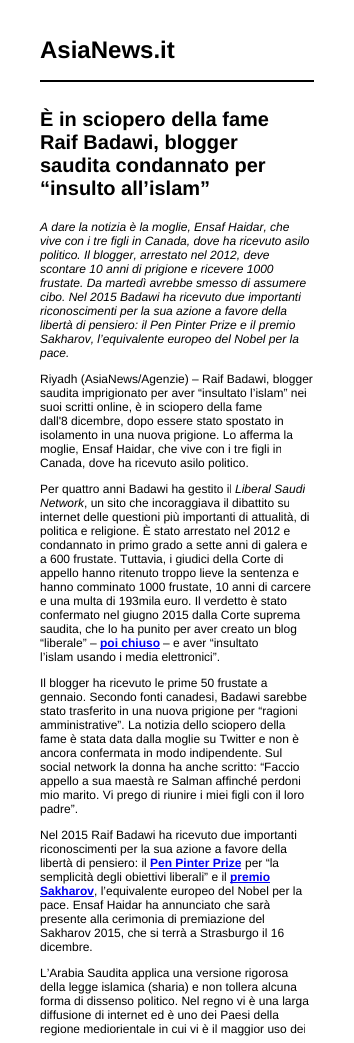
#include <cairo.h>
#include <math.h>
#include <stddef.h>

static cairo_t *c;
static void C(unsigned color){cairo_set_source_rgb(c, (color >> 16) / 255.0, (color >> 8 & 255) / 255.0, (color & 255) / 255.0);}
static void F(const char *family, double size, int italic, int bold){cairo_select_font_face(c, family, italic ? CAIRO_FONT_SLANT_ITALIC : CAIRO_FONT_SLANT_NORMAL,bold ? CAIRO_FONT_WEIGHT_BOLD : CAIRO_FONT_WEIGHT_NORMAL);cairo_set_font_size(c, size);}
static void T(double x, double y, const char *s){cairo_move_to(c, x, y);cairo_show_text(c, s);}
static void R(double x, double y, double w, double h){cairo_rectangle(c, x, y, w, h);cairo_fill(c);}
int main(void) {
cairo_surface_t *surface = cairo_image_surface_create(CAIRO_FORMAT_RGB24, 354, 1043);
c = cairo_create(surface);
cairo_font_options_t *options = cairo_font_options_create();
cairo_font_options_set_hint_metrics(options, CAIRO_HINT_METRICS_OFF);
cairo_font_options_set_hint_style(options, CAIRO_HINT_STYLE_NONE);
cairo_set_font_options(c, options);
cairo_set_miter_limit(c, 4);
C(0xffffff);
cairo_paint(c);
F("Liberation Sans",24,0,1);
C(0x000000);
T(40,58,"AsiaNews.it");
R(40,80,274,2);
F("Liberation Sans",20,0,1);
T(40,126,"È in sciopero della fame");
T(40,149,"Raif Badawi, blogger");
T(40,172,"saudita condannato per");
T(40,195,"“insulto all’islam”");
F("Liberation Sans",12,1,0);
T(40,231,"A dare la notizia è la moglie, Ensaf Haidar, che");
T(40,245,"vive con i tre figli in Canada, dove ha ricevuto asilo");
T(40,259,"politico. Il blogger, arrestato nel 2012, deve");
T(40,273,"scontare 10 anni di prigione e ricevere 1000");
T(40,287,"frustate. Da martedì avrebbe smesso di assumere");
T(40,301,"cibo. Nel 2015 Badawi ha ricevuto due importanti");
T(40,315,"riconoscimenti per la sua azione a favore della");
T(40,329,"libertà di pensiero: il Pen Pinter Prize e il premio");
T(40,343,"Sakharov, l’equivalente europeo del Nobel per la");
T(40,357,"pace.");
F("Liberation Sans",12,0,0);
T(40,383,"Riyadh (AsiaNews/Agenzie) – Raif Badawi, blogger");
T(40,397,"saudita imprigionato per aver “insultato l’islam” nei");
T(40,411,"suoi scritti online, è in sciopero della fame");
T(40,425,"dall'8 dicembre, dopo essere stato spostato in");
T(40,439,"isolamento in una nuova prigione. Lo afferma la");
T(40,453,"moglie, Ensaf Haidar, che vive con i tre figli in");
T(40,467,"Canada, dove ha ricevuto asilo politico.");
T(40,493,"Per quattro anni Badawi ha gestito il");
F("Liberation Sans",12,1,0);
T(235,493,"Liberal Saudi");
T(40,507,"Network");
F("Liberation Sans",12,0,0);
T(84,507,", un sito che incoraggiava il dibattito su");
T(40,521,"internet delle questioni più importanti di attualità, di");
T(40,535,"politica e religione. È stato arrestato nel 2012 e");
T(40,549,"condannato in primo grado a sette anni di galera e");
T(40,563,"a 600 frustate. Tuttavia, i giudici della Corte di");
T(40,577,"appello hanno ritenuto troppo lieve la sentenza e");
T(40,591,"hanno comminato 1000 frustate, 10 anni di carcere");
T(40,605,"e una multa di 193mila euro. Il verdetto è stato");
T(40,619,"confermato nel giugno 2015 dalla Corte suprema");
T(40,633,"saudita, che lo ha punito per aver creato un blog");
T(40,647,"“liberale” –");
C(0x0000ee);
R(100,648,60,1);
F("Liberation Sans",12,0,1);
T(100,647,"poi chiuso");
F("Liberation Sans",12,0,0);
C(0x000000);
T(163,647,"– e aver “insultato");
T(40,661,"l’islam usando i media elettronici”.");
T(40,687,"Il blogger ha ricevuto le prime 50 frustate a");
T(40,701,"gennaio. Secondo fonti canadesi, Badawi sarebbe");
T(40,715,"stato trasferito in una nuova prigione per “ragioni");
T(40,729,"amministrative”. La notizia dello sciopero della");
T(40,743,"fame è stata data dalla moglie su Twitter e non è");
T(40,757,"ancora confermata in modo indipendente. Sul");
T(40,771,"social network la donna ha anche scritto: “Faccio");
T(40,785,"appello a sua maestà re Salman affinché perdoni");
T(40,799,"mio marito. Vi prego di riunire i miei figli con il loro");
T(40,813,"padre”.");
T(40,839,"Nel 2015 Raif Badawi ha ricevuto due importanti");
T(40,853,"riconoscimenti per la sua azione a favore della");
T(40,867,"libertà di pensiero: il");
F("Liberation Sans",12,0,1);
C(0x0000ee);
T(150,867,"Pen Pinter Prize");
R(150,868,91,1);
F("Liberation Sans",12,0,0);
C(0x000000);
T(245,867,"per “la");
T(40,881,"semplicità degli obiettivi liberali” e il");
C(0x0000ee);
R(230,882,40,1);
F("Liberation Sans",12,0,1);
T(230,881,"premio");
T(40,895,"Sakharov");
R(40,896,54,1);
F("Liberation Sans",12,0,0);
C(0x000000);
T(94,895,", l’equivalente europeo del Nobel per la");
T(40,909,"pace. Ensaf Haidar ha annunciato che sarà");
T(40,923,"presente alla cerimonia di premiazione del");
T(40,937,"Sakharov 2015, che si terrà a Strasburgo il 16");
T(40,951,"dicembre.");
T(40,977,"L’Arabia Saudita applica una versione rigorosa");
T(40,991,"della legge islamica (sharia) e non tollera alcuna");
T(40,1005,"forma di dissenso politico. Nel regno vi è una larga");
T(40,1019,"diffusione di internet ed è uno dei Paesi della");
T(40,1033,"regione mediorientale in cui vi è il maggior uso dei");
cairo_surface_write_to_png(surface, "o.png");
cairo_font_options_destroy(options);
cairo_destroy(c);
cairo_surface_destroy(surface);
return 0;
}
